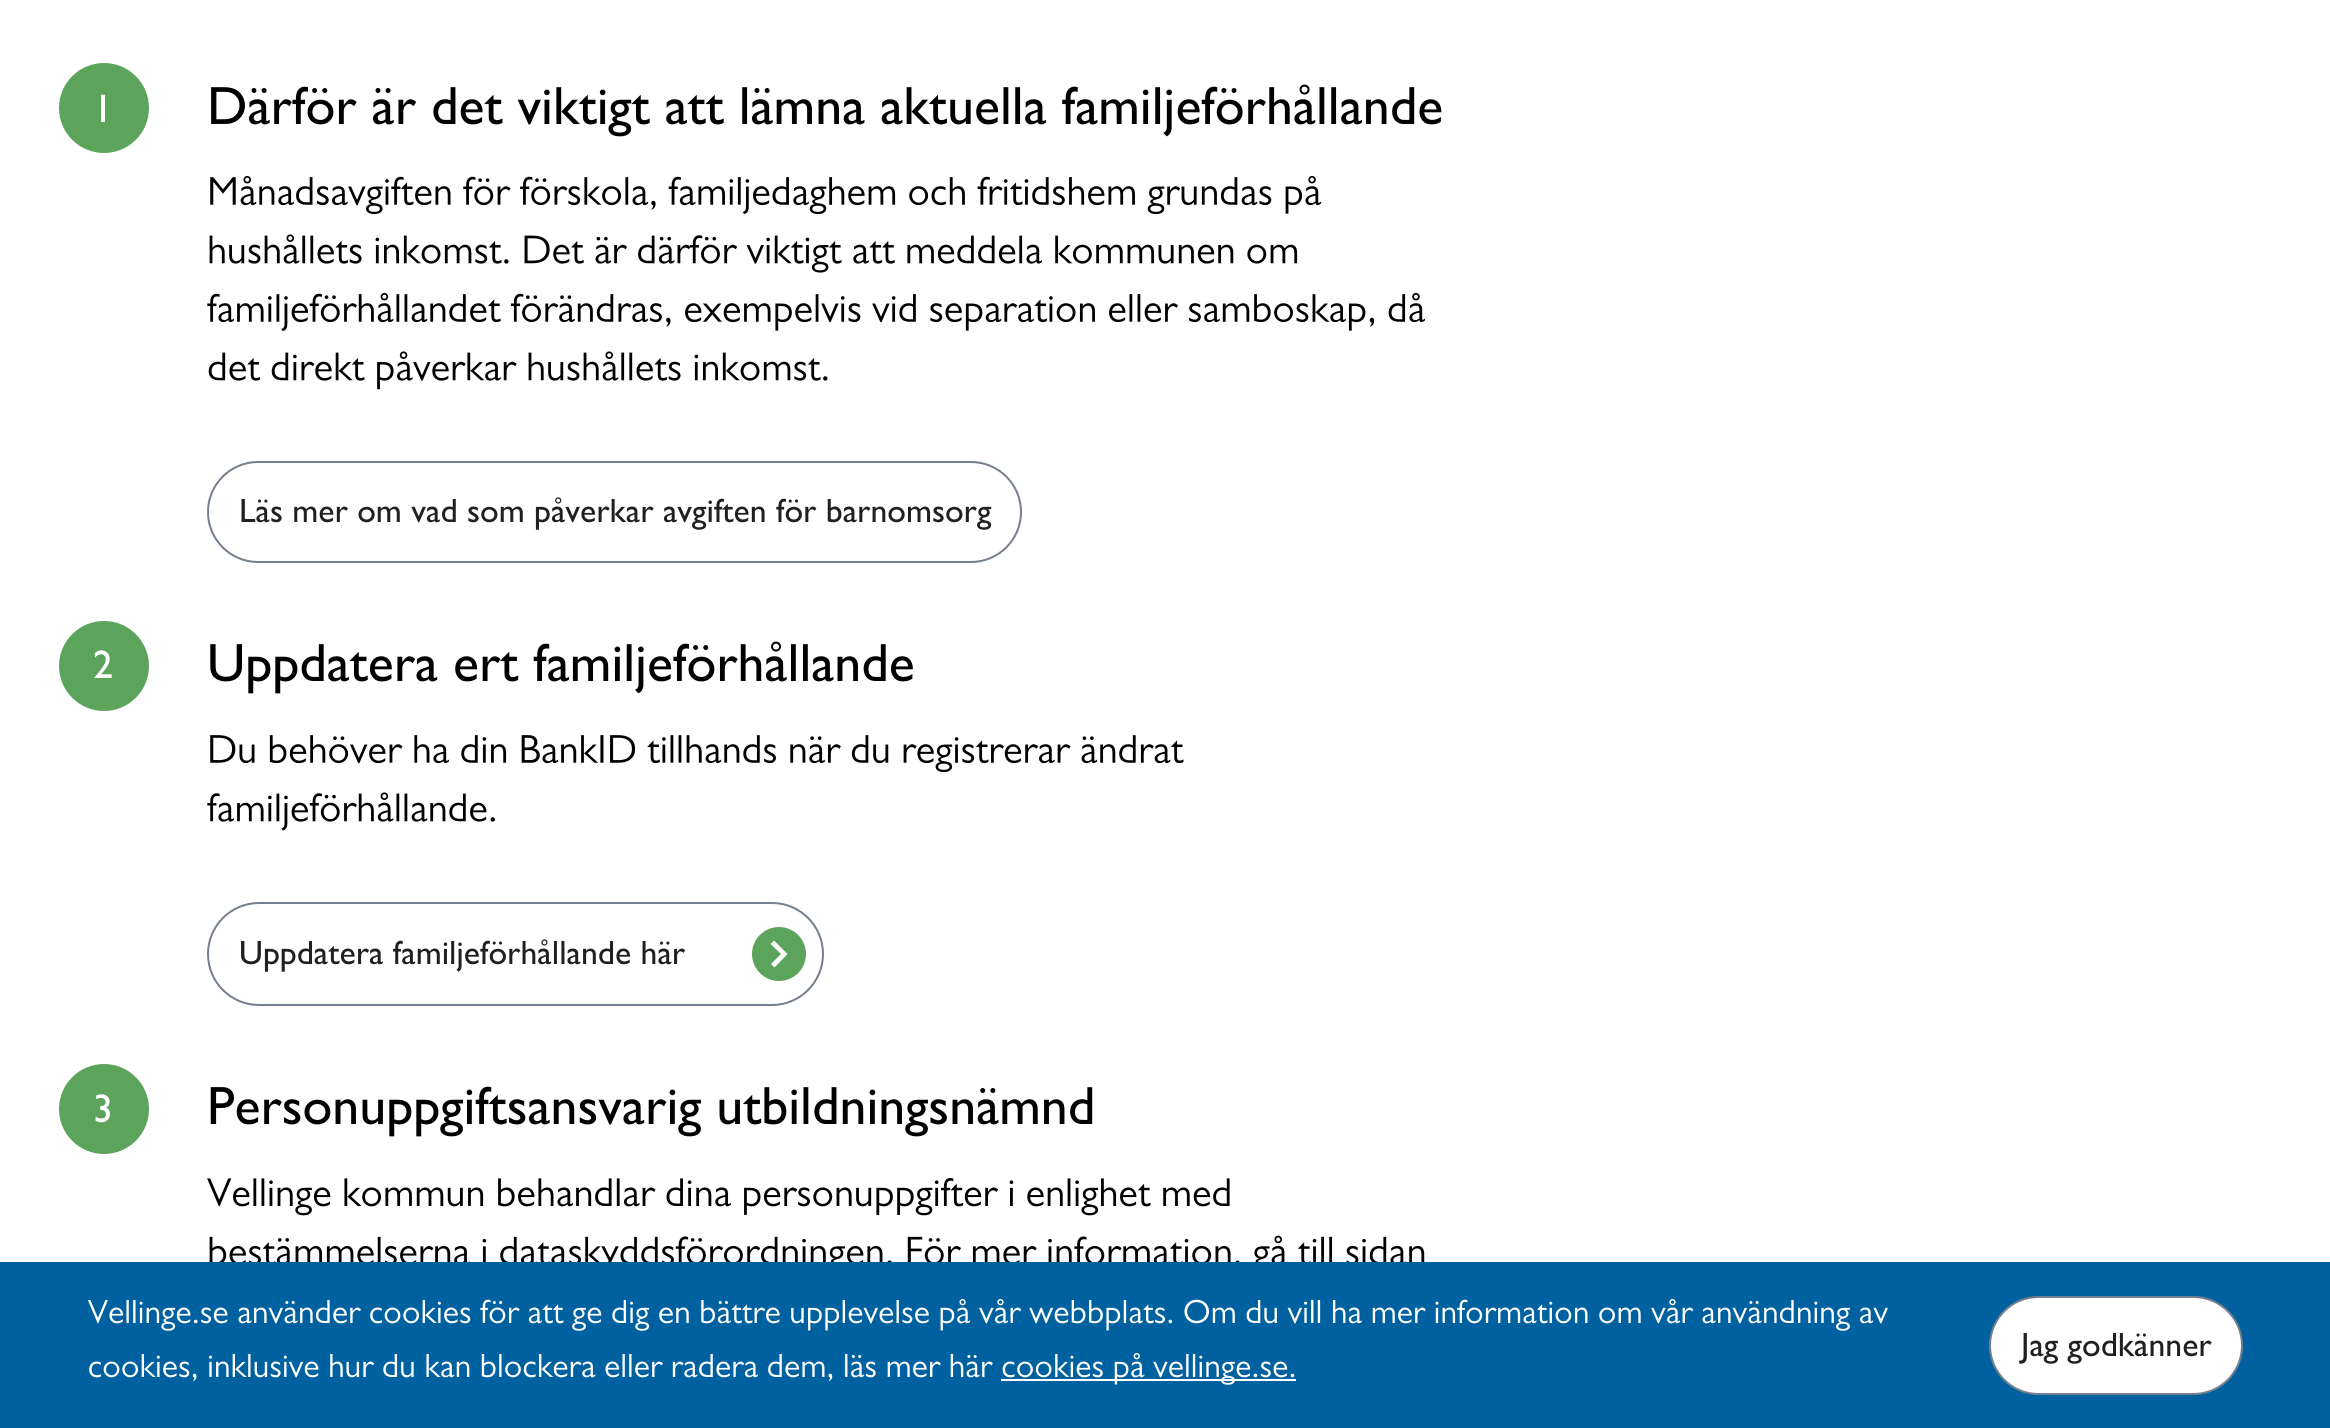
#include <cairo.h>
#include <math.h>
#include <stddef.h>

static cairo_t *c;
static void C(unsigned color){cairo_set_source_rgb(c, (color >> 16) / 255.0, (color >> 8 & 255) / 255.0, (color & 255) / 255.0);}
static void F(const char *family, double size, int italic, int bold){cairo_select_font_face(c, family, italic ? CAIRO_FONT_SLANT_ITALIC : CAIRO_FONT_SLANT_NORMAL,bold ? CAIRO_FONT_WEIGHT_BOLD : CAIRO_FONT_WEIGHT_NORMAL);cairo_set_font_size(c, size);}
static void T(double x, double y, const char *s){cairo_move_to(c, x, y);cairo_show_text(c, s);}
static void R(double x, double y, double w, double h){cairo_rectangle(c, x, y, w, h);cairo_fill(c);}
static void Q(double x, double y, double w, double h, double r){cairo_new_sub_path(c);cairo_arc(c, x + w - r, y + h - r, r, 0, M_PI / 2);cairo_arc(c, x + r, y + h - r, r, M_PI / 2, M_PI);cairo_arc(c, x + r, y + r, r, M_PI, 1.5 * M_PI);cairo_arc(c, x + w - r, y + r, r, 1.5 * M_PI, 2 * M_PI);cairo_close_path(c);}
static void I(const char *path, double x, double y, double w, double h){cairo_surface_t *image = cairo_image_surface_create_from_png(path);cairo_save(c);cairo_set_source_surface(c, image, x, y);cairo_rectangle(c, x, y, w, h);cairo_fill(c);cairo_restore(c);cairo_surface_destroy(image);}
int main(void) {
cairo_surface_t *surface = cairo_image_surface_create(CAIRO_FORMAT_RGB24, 2330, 1428);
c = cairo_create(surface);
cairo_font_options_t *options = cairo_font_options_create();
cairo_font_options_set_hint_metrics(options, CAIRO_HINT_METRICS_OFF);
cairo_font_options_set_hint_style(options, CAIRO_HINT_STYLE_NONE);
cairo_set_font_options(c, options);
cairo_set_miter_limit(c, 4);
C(0xffffff);
cairo_paint(c);
C(0x5ca45b);
cairo_arc(c,104,108,45,0,2 * M_PI);
cairo_fill(c);
F("Gill Sans Medium",40,0,0);
C(0xffffff);
T(93,122,"1");
F("Gill Sans Medium",54,0,0);
C(0x000000);
T(207,124,"Därför är det viktigt att lämna aktuella familjeförhållande");
I("1.png",210,175,1112,40);
I("2.png",209,234,1089,39);
I("3.png",207,292,1218,39);
I("4.png",208,351,620,39);
Q(208,462,813,100,50);
C(0x767f8d);
cairo_stroke(c);
F("Gill Sans Medium",33.75,0,0);
C(0x202020);
T(239,522,"Läs mer om vad som påverkar avgiften för barnomsorg");
C(0x5ca45b);
cairo_new_path(c);
cairo_arc(c,104,666,45,0,2 * M_PI);
cairo_fill(c);
F("Gill Sans Medium",40,0,0);
C(0xffffff);
T(93,678,"2");
F("Gill Sans Medium",54,0,0);
C(0x000000);
T(207,681,"Uppdatera ert familjeförhållande");
I("5.png",210,735,974,38);
I("6.png",207,792,288,39);
Q(208,903,615,102,51);
C(0x767f8d);
cairo_stroke(c);
F("Gill Sans Medium",33.75,0,0);
C(0x202020);
T(239,964,"Uppdatera familjeförhållande här");
C(0x5ca45b);
cairo_new_path(c);
cairo_arc(c,779,954,27,0,2 * M_PI);
cairo_fill(c);
C(0xffffff);
cairo_new_path(c);
cairo_move_to(c,774,940.5);
cairo_line_to(c,770.5,944);
cairo_line_to(c,781,954);
cairo_line_to(c,771,964);
cairo_line_to(c,774.5,967.5);
cairo_line_to(c,787.5,954);
cairo_close_path(c);
cairo_fill(c);
C(0x5ca45b);
cairo_arc(c,104,1109,45,0,2 * M_PI);
cairo_fill(c);
F("Gill Sans Medium",40,0,0);
C(0xffffff);
T(93,1122,"3");
F("Gill Sans Medium",54,0,0);
C(0x000000);
T(207,1124,"Personuppgiftsansvarig utbildningsnämnd");
I("7.png",207,1178,1023,38);
I("8.png",209,1235,1216,27);
C(0x0061a1);
R(0,1262,2330,166);
I("9.png",87,1299,1801,32);
I("10.png",89,1354,904,27);
C(0xffffff);
R(1001,1379,295,2);
I("11.png",1002,1353,293,32);
Q(1990,1297,252,97,48.5);
cairo_fill_preserve(c);
C(0x767f8d);
cairo_stroke(c);
F("Gill Sans Medium",33.75,0,0);
C(0x202020);
T(2021,1356,"Jag godkänner");
cairo_surface_write_to_png(surface, "o.png");
cairo_font_options_destroy(options);
cairo_destroy(c);
cairo_surface_destroy(surface);
return 0;
}
